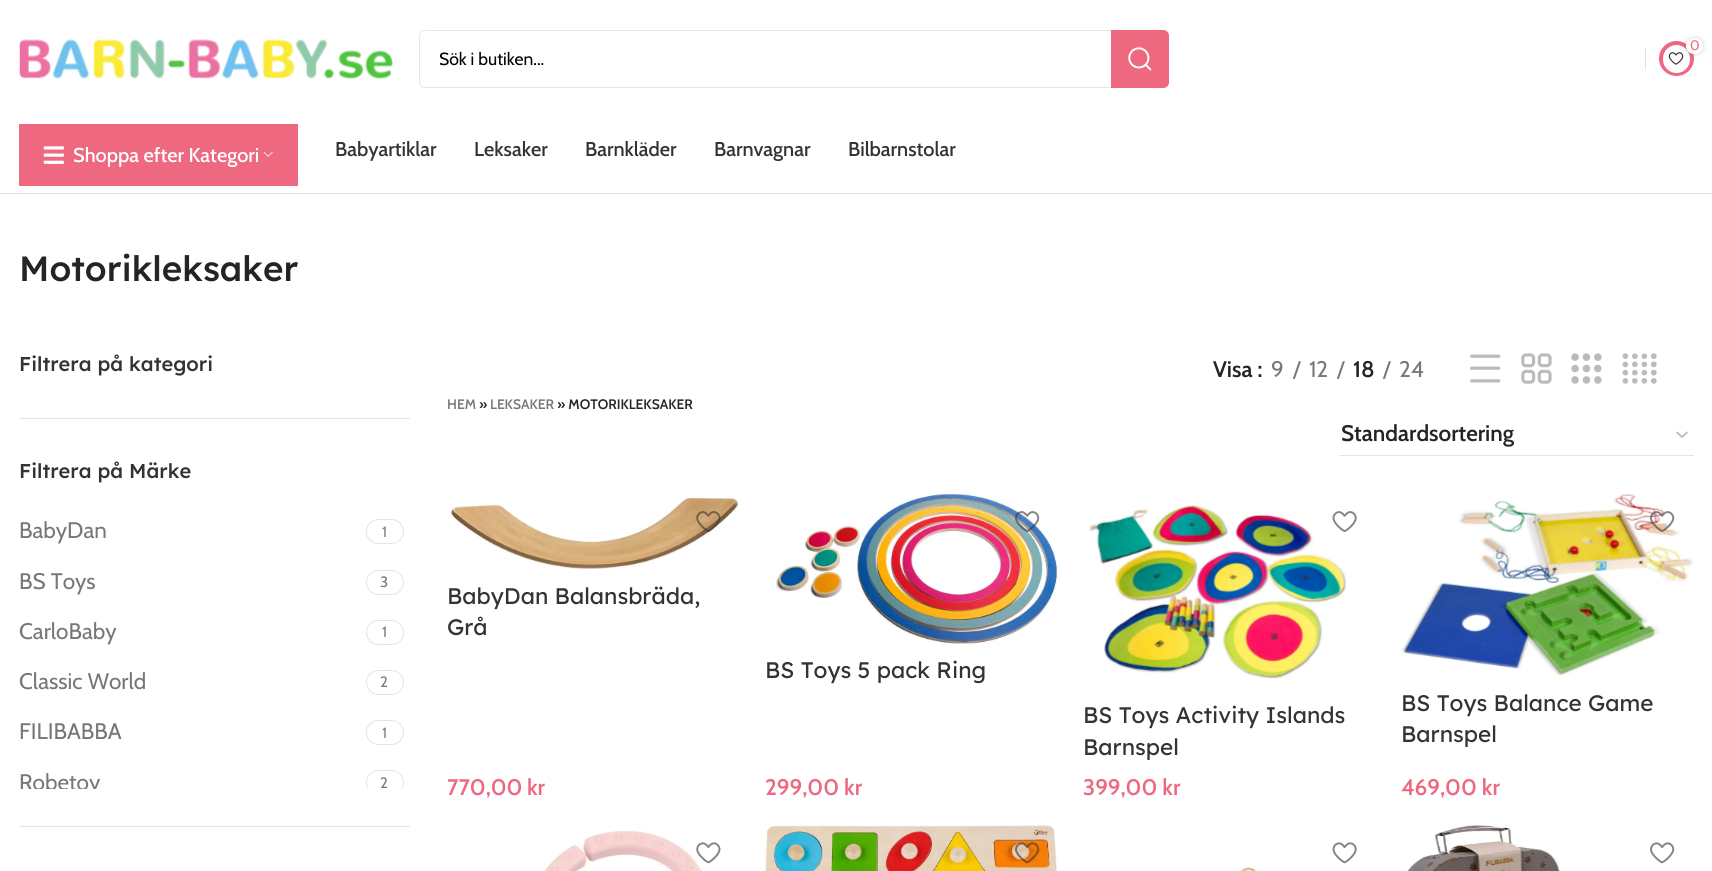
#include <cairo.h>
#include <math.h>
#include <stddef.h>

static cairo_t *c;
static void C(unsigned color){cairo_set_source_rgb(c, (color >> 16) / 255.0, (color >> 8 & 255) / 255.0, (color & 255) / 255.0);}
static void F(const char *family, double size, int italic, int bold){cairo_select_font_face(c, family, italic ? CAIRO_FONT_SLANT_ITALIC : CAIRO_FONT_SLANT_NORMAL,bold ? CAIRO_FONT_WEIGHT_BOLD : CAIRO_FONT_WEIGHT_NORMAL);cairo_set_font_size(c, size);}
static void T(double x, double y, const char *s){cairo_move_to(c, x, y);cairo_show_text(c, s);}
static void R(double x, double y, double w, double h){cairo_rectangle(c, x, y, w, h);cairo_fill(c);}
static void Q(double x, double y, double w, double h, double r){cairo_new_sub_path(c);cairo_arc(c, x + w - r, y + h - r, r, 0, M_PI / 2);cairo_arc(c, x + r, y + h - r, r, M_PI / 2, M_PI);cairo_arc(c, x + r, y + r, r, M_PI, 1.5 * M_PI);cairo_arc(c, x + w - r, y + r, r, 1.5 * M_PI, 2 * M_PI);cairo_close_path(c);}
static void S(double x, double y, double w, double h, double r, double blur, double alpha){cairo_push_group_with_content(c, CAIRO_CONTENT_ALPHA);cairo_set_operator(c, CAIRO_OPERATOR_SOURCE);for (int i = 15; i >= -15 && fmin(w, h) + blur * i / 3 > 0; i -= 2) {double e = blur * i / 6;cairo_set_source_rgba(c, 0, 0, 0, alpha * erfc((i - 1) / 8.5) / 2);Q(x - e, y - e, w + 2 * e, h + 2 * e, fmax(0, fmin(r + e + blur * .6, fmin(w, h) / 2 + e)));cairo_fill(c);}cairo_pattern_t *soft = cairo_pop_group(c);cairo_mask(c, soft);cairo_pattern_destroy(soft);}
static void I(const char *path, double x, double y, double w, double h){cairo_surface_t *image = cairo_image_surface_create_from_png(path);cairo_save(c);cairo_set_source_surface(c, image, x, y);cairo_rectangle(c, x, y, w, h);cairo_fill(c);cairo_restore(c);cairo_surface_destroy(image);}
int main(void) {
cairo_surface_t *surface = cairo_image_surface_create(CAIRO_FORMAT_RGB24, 1712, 871);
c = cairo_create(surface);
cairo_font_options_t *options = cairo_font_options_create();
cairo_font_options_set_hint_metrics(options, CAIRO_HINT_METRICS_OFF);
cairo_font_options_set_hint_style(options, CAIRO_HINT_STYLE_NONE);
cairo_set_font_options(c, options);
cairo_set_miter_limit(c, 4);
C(0xffffff);
cairo_paint(c);
I("1.png",19,39,374,41);
C(0xee6880);
cairo_arc(c,1676.5,58.5,17.5,0,2 * M_PI);
cairo_fill(c);
C(0xffffff);
Q(1663,45,27,28,13.5);
cairo_fill(c);
I("2.png",1668,52,16,13);
C(0x000000);
S(1686,38,17,16,8,2.5,.17);
C(0xffffff);
Q(1686,38,17,16,8);
cairo_fill(c);
F("Cabin",13.75,0,0);
C(0xee6880);
T(1690,50,"0");
C(0xe4e4e4);
R(1645,48,1,22);
Q(419.5,30.5,749,57,5.5);
C(0xe6e6e6);
cairo_set_line_width(c,1);
cairo_stroke(c);
F("Cabin",17.5,0,0);
C(0x000000);
T(439,65,"Sök i butiken...");
C(0xee6880);
cairo_new_path(c);
cairo_move_to(c,1111,30);
cairo_line_to(c,1163,30);
cairo_curve_to(c,1166.5,30,1169,32.5,1169,36);
cairo_line_to(c,1169,82);
cairo_curve_to(c,1169,85.5,1166.5,88,1163,88);
cairo_line_to(c,1111,88);
cairo_close_path(c);
cairo_fill(c);
I("3.png",1128,47,24,24);
C(0xe4e4e4);
R(0,193,1712,1);
C(0xee6880);
R(19,124,279,62);
I("4.png",43,146,21,18);
F("Cabin Medium",20,0,0);
C(0xffffff);
T(73,162,"Shoppa efter Kategori");
I("5.png",263,152,10,5);
C(0x333333);
T(335,156,"Babyartiklar");
T(474,156,"Leksaker");
T(585,156,"Barnkläder");
T(714,156,"Barnvagnar");
T(848,156,"Bilbarnstolar");
F("Lexend Medium",35,0,0);
C(0x242424);
T(19,281,"Motorikleksaker");
C(0xe4e4e4);
R(19,418,391,1);
F("Lexend Medium",20,0,0);
C(0x333333);
T(19,371,"Filtrera på kategori");
C(0xe4e4e4);
R(19,826,391,1);
C(0x333333);
T(19,478,"Filtrera på Märke");
F("Cabin",22.5,0,0);
C(0x777777);
T(19,538,"BabyDan");
Q(366.5,519.5,37,24,12);
C(0xe4e4e4);
cairo_stroke(c);
F("Cabin",15,0,0);
C(0x777777);
T(382,537,"1");
F("Cabin",22.5,0,0);
T(19,589,"BS Toys");
Q(366.5,570.5,37,24,12);
C(0xe4e4e4);
cairo_stroke(c);
F("Cabin",15,0,0);
C(0x777777);
T(380,587,"3");
F("Cabin",22.5,0,0);
T(19,639,"CarloBaby");
Q(366.5,620.5,37,24,12);
C(0xe4e4e4);
cairo_stroke(c);
F("Cabin",15,0,0);
C(0x777777);
T(382,637,"1");
F("Cabin",22.5,0,0);
T(19,689,"Classic World");
Q(366.5,670.5,37,24,12);
C(0xe4e4e4);
cairo_stroke(c);
F("Cabin",15,0,0);
C(0x777777);
T(380,687,"2");
F("Cabin",22.5,0,0);
T(19,739,"FILIBABBA");
Q(366.5,720.5,37,24,12);
C(0xe4e4e4);
cairo_stroke(c);
F("Cabin",15,0,0);
C(0x777777);
T(382,738,"1");
cairo_save(c);
cairo_rectangle(c,19,510,391,279);
cairo_clip(c);
F("Cabin",22.5,0,0);
T(19,790,"Robetoy");
Q(366.5,770.5,37,24,12);
C(0xe4e4e4);
cairo_stroke(c);
cairo_restore(c);
T(380,788,"2");
F("Cabin SemiBold",13.75,0,0);
T(447,409,"HEM");
C(0x242424);
T(479,409,"»");
C(0x777777);
T(490,409,"LEKSAKER");
C(0x242424);
T(557,409,"» MOTORIKLEKSAKER");
F("Cabin SemiBold",22.5,0,0);
T(1213,377,"Visa :");
F("Cabin",22.5,0,0);
C(0x777777);
T(1271,377,"9");
T(1293,377,"/");
T(1309,377,"12");
T(1337,377,"/");
F("Cabin SemiBold",22.5,0,0);
C(0x242424);
T(1353,377,"18");
F("Cabin",22.5,0,0);
C(0x777777);
T(1383,377,"/");
T(1399,377,"24");
I("6.png",1470,354,31,29);
I("7.png",1521,353,31,31);
I("8.png",1571,353,31,31);
I("9.png",1622,353,35,31);
cairo_new_path(c);
cairo_move_to(c,1676.5,432);
cairo_line_to(c,1682,437);
cairo_line_to(c,1687.5,432);
C(0xbbbbbb);
cairo_set_line_width(c,1.8);
cairo_stroke(c);
C(0xe6e6e6);
R(1339,455,355,1);
F("Cabin SemiBold",22.5,0,0);
C(0x242424);
T(1341,441,"Standardsortering");
I("10.png",451,497,288,72);
I("11.png",696,511,25,21);
F("Lexend",22.5,0,0);
C(0x333333);
T(447,604,"BabyDan Balansbräda,");
T(447,635,"Grå");
cairo_save(c);
cairo_rectangle(c,448,494,292,306);
cairo_clip(c);
F("Cabin SemiBold",22.5,0,0);
C(0xee6880);
T(447,795,"770,00");
cairo_restore(c);
F("Cabin SemiBold",22.5,0,0);
C(0xee6880);
T(527,795,"kr");
I("12.png",775,494,282,150);
I("13.png",1015,511,25,21);
F("Lexend",22.5,0,0);
C(0x333333);
T(765,678,"BS Toys 5 pack Ring");
F("Cabin SemiBold",22.5,0,0);
C(0xee6880);
T(765,795,"299,00 kr");
I("14.png",1089,505,258,174);
I("15.png",1332,511,25,21);
F("Lexend",22.5,0,0);
C(0x333333);
T(1083,723,"BS Toys Activity Islands");
T(1083,755,"Barnspel");
F("Cabin SemiBold",22.5,0,0);
C(0xee6880);
T(1083,795,"399,00 kr");
I("16.png",1401,494,293,182);
I("17.png",1650,511,25,21);
F("Lexend",22.5,0,0);
C(0x333333);
T(1401,711,"BS Toys Balance Game");
T(1401,742,"Barnspel");
F("Cabin SemiBold",22.5,0,0);
C(0xee6880);
T(1401,795,"469,00 kr");
I("18.png",544,830,158,41);
I("19.png",696,842,25,22);
I("20.png",765,825,292,46);
I("21.png",1015,842,25,22);
I("22.png",1332,842,25,22);
I("23.png",1240,866,18,5);
I("24.png",1407,825,153,46);
I("25.png",1650,842,25,22);
cairo_surface_write_to_png(surface, "o.png");
cairo_font_options_destroy(options);
cairo_destroy(c);
cairo_surface_destroy(surface);
return 0;
}
